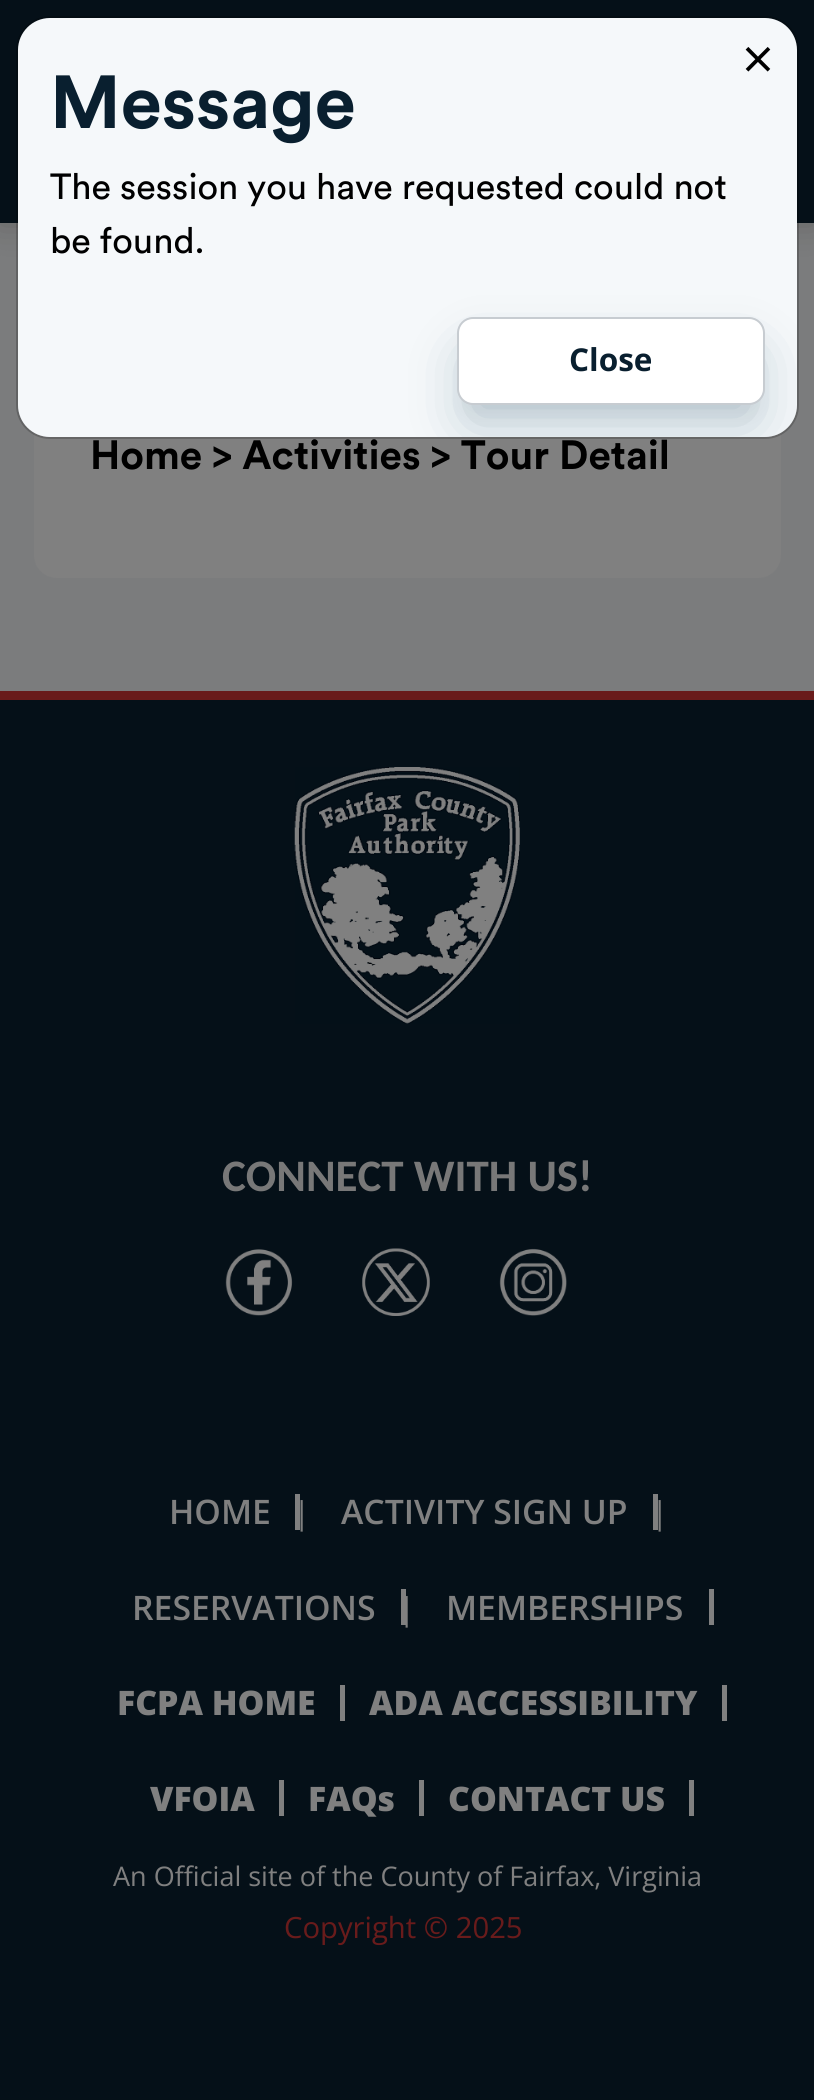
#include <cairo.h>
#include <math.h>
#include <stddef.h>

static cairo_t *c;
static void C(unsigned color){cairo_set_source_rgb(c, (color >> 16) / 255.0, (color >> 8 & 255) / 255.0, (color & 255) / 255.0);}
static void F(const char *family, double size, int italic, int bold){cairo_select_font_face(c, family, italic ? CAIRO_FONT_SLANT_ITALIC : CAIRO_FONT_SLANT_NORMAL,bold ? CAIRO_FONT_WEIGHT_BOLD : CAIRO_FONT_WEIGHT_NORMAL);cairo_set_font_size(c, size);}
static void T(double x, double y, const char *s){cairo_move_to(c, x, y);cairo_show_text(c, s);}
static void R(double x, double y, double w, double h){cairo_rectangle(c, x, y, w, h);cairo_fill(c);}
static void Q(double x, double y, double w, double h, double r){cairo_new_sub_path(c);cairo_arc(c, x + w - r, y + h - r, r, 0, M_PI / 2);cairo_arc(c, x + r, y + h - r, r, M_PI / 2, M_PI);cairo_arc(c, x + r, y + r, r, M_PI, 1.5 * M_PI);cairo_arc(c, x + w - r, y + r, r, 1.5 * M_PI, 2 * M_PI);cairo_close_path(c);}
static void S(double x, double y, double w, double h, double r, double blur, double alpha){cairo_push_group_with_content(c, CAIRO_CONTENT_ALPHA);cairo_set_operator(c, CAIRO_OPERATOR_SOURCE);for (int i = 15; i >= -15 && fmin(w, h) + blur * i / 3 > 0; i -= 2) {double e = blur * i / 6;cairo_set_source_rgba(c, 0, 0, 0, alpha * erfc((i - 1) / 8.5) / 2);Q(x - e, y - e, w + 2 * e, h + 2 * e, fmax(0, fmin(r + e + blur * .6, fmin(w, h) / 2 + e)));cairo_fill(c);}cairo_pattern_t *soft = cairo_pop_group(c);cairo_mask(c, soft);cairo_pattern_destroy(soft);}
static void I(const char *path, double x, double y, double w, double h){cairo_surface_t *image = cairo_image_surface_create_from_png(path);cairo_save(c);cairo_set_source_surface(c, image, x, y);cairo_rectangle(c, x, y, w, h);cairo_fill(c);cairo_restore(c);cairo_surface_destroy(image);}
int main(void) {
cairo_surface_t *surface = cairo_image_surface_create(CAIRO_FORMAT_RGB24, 814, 2100);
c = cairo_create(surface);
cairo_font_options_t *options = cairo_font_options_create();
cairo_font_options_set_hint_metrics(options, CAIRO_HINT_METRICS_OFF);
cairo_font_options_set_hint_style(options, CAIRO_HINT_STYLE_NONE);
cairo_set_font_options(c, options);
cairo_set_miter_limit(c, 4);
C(0x7b7c7d);
cairo_paint(c);
C(0x808080);
Q(34,268,747,310,23);
cairo_fill(c);
C(0x666666);
S(-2,-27,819,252,0,17,1);
C(0x051018);
R(0,0,814,223);
Q(17,17,781,421,33);
cairo_set_source_rgba(c,0,0,0,0.2);
cairo_stroke(c);
C(0xf5f8fa);
Q(18,18,779,419,32);
cairo_fill(c);
F("Open Sans",56,0,0);
C(0x000000);
T(742,79,"×");
F("Circular",74.25,0,1);
C(0x091f2f);
T(50,128,"Message");
F("Circular",36,0,0);
C(0x000000);
T(50,199,"The session you have requested could not");
T(50,253,"be found.");
C(0x000000);
S(464,338,294,74,9,9,.05);
cairo_save(c);
Q(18,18,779,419,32);
cairo_clip(c);
C(0x2e5b73);
S(466,353,290,70,7,27,.3);
cairo_restore(c);
C(0xffffff);
Q(458,318,306,86,15);
cairo_fill_preserve(c);
C(0xc7ccd1);
cairo_stroke(c);
F("Open Sans",31.5,0,1);
C(0x091f2f);
T(569,371,"Close");
F("Circular",40.5,0,1);
C(0x000000);
T(90,469,"Home > Activities > Tour Detail");
C(0x051018);
R(0,700,814,1400);
C(0x691b1b);
R(0,691,814,9);
I("1.png",294,767,226,257);
F("Carlito",45,0,1);
C(0x787878);
T(222,1191,"CONNECT WITH US!");
I("2.png",225,1249,68,67);
I("3.png",362,1248,68,68);
I("4.png",499,1248,68,68);
F("Open Sans SemiBold",33.75,0,0);
C(0x808080);
T(169,1524,"HOME");
R(295,1494,5,36);
F("Open Sans",31.5,0,0);
T(293,1524,"|");
F("Open Sans SemiBold",33.75,0,0);
T(341,1524,"ACTIVITY SIGN UP");
R(653,1494,5,36);
F("Open Sans",31.5,0,0);
T(651,1524,"|");
F("Open Sans SemiBold",33.75,0,0);
T(132,1620,"RESERVATIONS");
R(401,1589,5,36);
F("Open Sans",31.5,0,0);
T(398,1620,"|");
F("Open Sans SemiBold",33.75,0,0);
T(446,1620,"MEMBERSHIPS");
R(709,1589,5,36);
F("Open Sans ExtraBold",33.75,0,0);
T(117,1715,"FCPA HOME");
R(340,1685,5,36);
T(369,1715,"ADA ACCESSIBILITY");
R(722,1685,5,36);
T(150,1811,"VFOIA");
R(279,1780,5,36);
T(308,1811,"FAQs");
R(419,1780,5,36);
T(448,1811,"CONTACT US");
R(689,1780,5,36);
F("Open Sans",27,0,0);
T(113,1886,"An Official site of the County of Fairfax, Virginia");
F("Open Sans",29.25,0,0);
C(0x691b1b);
T(284,1938,"Copyright © 2025");
cairo_surface_write_to_png(surface, "o.png");
cairo_font_options_destroy(options);
cairo_destroy(c);
cairo_surface_destroy(surface);
return 0;
}
